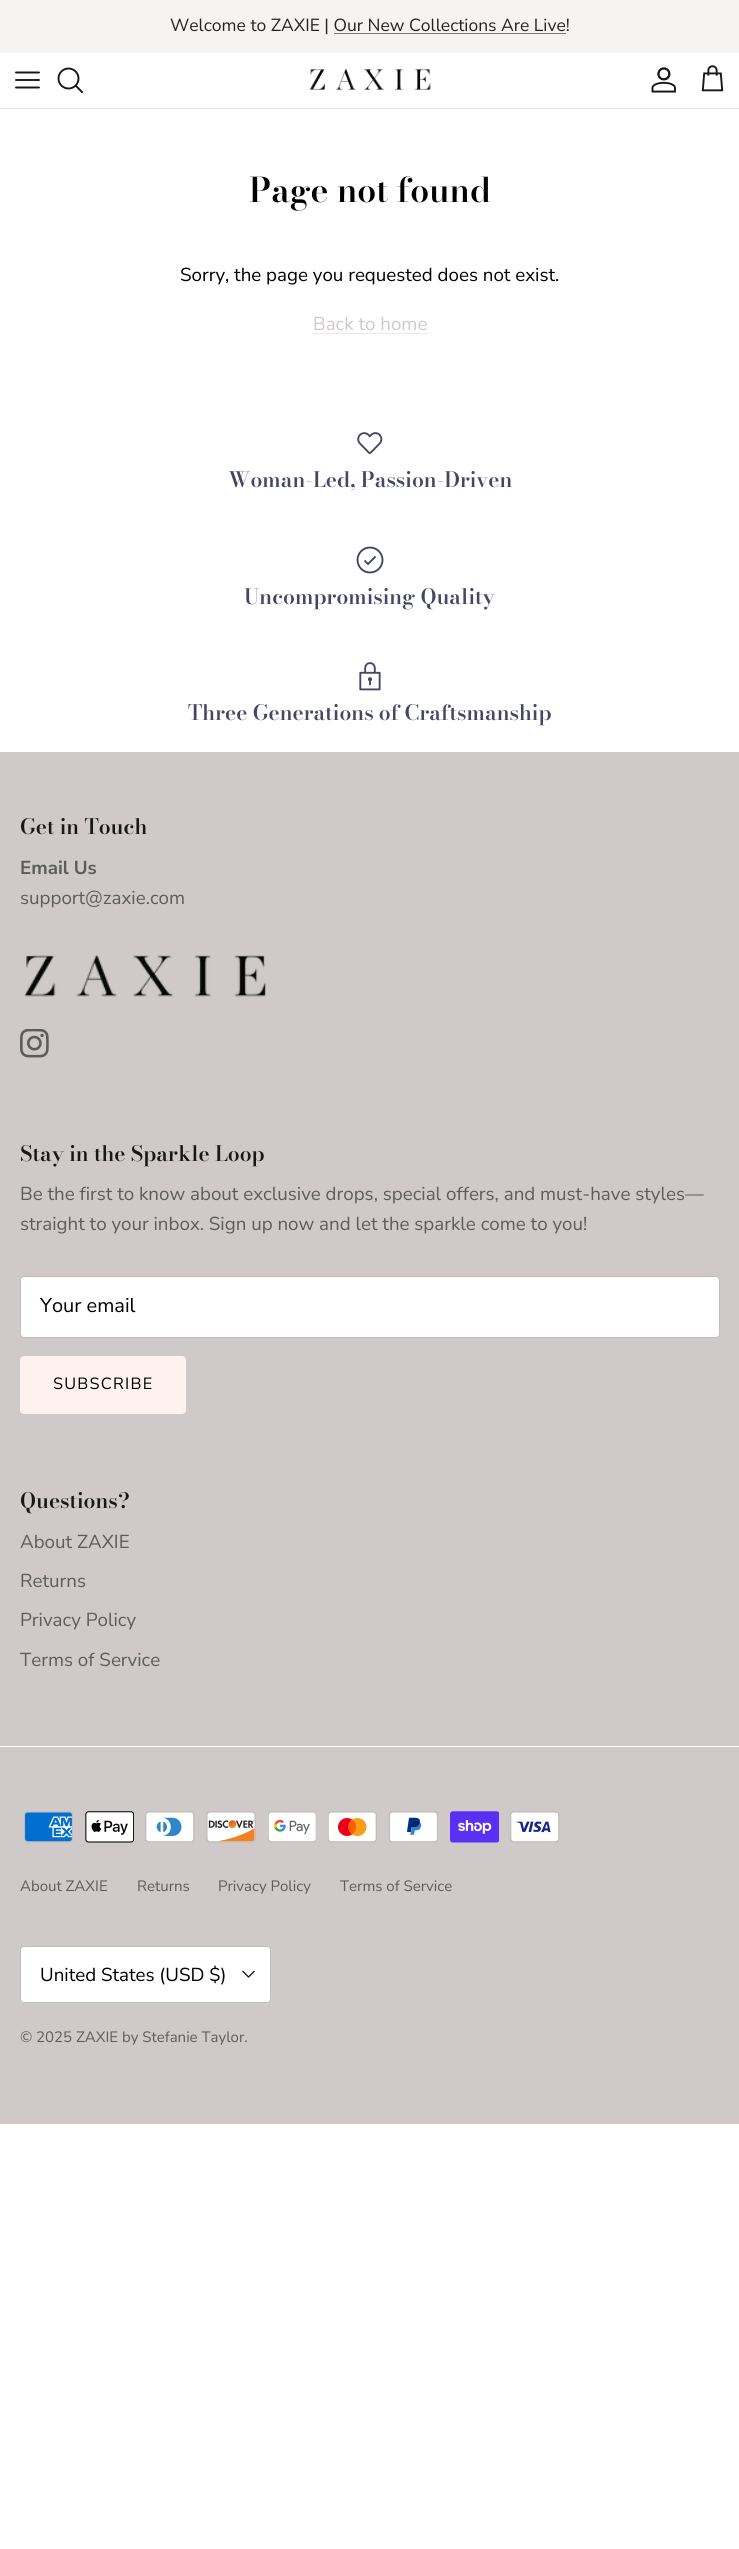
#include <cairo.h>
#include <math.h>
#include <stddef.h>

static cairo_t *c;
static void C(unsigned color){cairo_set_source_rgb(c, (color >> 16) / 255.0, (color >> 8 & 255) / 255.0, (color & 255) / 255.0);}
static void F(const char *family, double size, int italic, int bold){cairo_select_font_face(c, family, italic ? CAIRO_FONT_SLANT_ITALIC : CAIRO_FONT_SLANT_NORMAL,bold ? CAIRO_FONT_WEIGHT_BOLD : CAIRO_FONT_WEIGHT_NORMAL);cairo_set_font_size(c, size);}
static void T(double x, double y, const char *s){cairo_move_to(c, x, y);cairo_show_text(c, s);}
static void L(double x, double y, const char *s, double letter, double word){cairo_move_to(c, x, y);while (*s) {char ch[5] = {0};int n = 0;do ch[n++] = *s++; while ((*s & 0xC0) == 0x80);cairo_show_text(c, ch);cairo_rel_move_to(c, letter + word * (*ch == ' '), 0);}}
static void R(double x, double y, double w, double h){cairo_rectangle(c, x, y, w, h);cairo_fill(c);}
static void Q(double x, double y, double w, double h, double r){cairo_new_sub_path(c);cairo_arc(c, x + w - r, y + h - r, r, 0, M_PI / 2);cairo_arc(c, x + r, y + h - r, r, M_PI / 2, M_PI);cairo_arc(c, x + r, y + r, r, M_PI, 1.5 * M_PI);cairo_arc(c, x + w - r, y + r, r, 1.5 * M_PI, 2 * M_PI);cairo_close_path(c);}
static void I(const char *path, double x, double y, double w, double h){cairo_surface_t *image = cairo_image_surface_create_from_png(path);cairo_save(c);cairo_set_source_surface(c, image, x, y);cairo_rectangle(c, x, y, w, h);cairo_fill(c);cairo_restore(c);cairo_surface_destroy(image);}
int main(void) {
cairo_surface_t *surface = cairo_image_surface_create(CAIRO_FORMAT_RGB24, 739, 2549);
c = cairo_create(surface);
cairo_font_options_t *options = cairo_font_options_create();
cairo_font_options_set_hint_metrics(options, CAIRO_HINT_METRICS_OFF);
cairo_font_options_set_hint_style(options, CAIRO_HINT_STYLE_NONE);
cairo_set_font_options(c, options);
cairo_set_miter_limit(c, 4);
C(0xffffff);
cairo_paint(c);
C(0xf5f4f2);
R(0,0,739,53);
F("Nunito Sans",17.5,0,0);
C(0x232323);
T(170,31,"Welcome to ZAXIE | Our New Collections Are Live!");
C(0x777776);
R(334,33,232,1);
C(0xdfe3e8);
R(0,108,739,1);
cairo_new_path(c);
cairo_move_to(c,16,80);
cairo_line_to(c,39,80);
cairo_move_to(c,16,72.5);
cairo_line_to(c,39,72.5);
cairo_move_to(c,16,87.5);
cairo_line_to(c,39,87.5);
C(0x171717);
cairo_set_line_width(c,1.9);
cairo_set_line_cap(c,CAIRO_LINE_CAP_ROUND);
cairo_set_line_join(c,CAIRO_LINE_JOIN_ROUND);
cairo_stroke(c);
cairo_arc(c,68.5,78.5,10,0,2 * M_PI);
cairo_set_line_cap(c,CAIRO_LINE_CAP_BUTT);
cairo_set_line_join(c,CAIRO_LINE_JOIN_MITER);
cairo_stroke(c);
cairo_new_path(c);
cairo_move_to(c,76,86);
cairo_line_to(c,82,92);
cairo_set_line_cap(c,CAIRO_LINE_CAP_SQUARE);
cairo_stroke(c);
I("1.png",309,69,122,21);
I("2.png",651,67,25,26);
I("3.png",701,65,23,27);
F("Bodoni Moda SemiBold",33.75,0,0);
C(0x000000);
T(249,202,"Page not found");
F("Nunito Sans",18.75,0,0);
T(180,281,"Sorry, the page you requested does not exist.");
C(0xcfcac9);
T(313,330,"Back to home");
C(0xeceae9);
R(313,333,115,1);
I("4.png",357,432,26,22);
F("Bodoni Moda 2 SemiBold",21.1,0,0);
C(0x454564);
T(228,487,"Woman-Led, Passion-Driven");
cairo_new_path(c);
cairo_arc(c,370,560,12.5,0,2 * M_PI);
cairo_set_line_cap(c,CAIRO_LINE_CAP_BUTT);
cairo_stroke(c);
cairo_new_path(c);
cairo_move_to(c,375.5,556.5);
cairo_line_to(c,368,564);
cairo_line_to(c,364.5,560.5);
cairo_stroke(c);
T(244,604,"Uncompromising Quality");
I("5.png",359,662,22,29);
T(188,720,"Three Generations of Craftsmanship");
C(0xcfcac9);
R(0,752,739,1372);
C(0x171717);
T(20,834,"Get in Touch");
F("Nunito Sans",18.75,0,1);
C(0x5c5c5c);
T(20,874,"Email Us");
F("Nunito Sans",18.75,0,0);
T(20,904,"support@zaxie.com");
I("6.png",24,955,243,42);
I("7.png",20,1029,29,29);
F("Bodoni Moda 2 SemiBold",21.1,0,0);
C(0x171717);
T(20,1161,"Stay in the Sparkle Loop");
F("Nunito Sans",18.75,0,0);
C(0x5c5c5c);
T(20,1200,"Be the first to know about exclusive drops, special offers, and must-have styles—");
T(20,1230,"straight to your inbox. Sign up now and let the sparkle come to you!");
C(0xffffff);
Q(20.5,1276.5,699,61,3.5);
cairo_fill_preserve(c);
C(0xbfbfbf);
cairo_set_line_width(c,1);
cairo_stroke(c);
F("Nunito Sans",20,0,0);
C(0x000000);
T(40,1312,"Your email");
C(0xfdf2f0);
Q(20.5,1356.5,165,57,3.5);
cairo_fill_preserve(c);
cairo_stroke(c);
F("Nunito Sans",16.25,0,0);
C(0x000000);
L(53,1389,"SUBSCRIBE",1.25,0);
F("Bodoni Moda 2 SemiBold",21.1,0,0);
C(0x171717);
T(20,1508,"Questions?");
F("Nunito Sans",18.75,0,0);
C(0x5c5c5c);
T(20,1548,"About ZAXIE");
T(20,1587,"Returns");
T(20,1626,"Privacy Policy");
T(20,1666,"Terms of Service");
C(0xffffff);
R(0,1746,739,1);
I("8.png",24,1811,49,32);
I("9.png",85,1811,49,32);
I("10.png",145,1811,50,32);
I("11.png",206,1811,50,32);
I("12.png",268,1811,48,32);
I("13.png",328,1811,49,32);
I("14.png",389,1811,49,32);
I("15.png",450,1811,49,32);
I("16.png",510,1811,50,32);
F("Nunito Sans",15,0,0);
C(0x5c5c5c);
T(20,1891,"About ZAXIE");
T(137,1891,"Returns");
T(218,1891,"Privacy Policy");
T(340,1891,"Terms of Service");
C(0xffffff);
Q(20.5,1946.5,250,56,3.5);
cairo_fill_preserve(c);
C(0xbfbfbf);
cairo_stroke(c);
F("Nunito Sans",18.75,0,0);
C(0x000000);
T(40,1981,"United States (USD $)");
cairo_new_path(c);
cairo_move_to(c,254.5,1971);
cairo_line_to(c,248.5,1977);
cairo_line_to(c,242.5,1971);
cairo_set_line_width(c,1.2);
cairo_stroke(c);
F("Nunito Sans",15,0,0);
C(0x5c5c5c);
T(20,2042,"© 2025 ZAXIE by Stefanie Taylor.");
cairo_surface_write_to_png(surface, "o.png");
cairo_font_options_destroy(options);
cairo_destroy(c);
cairo_surface_destroy(surface);
return 0;
}
